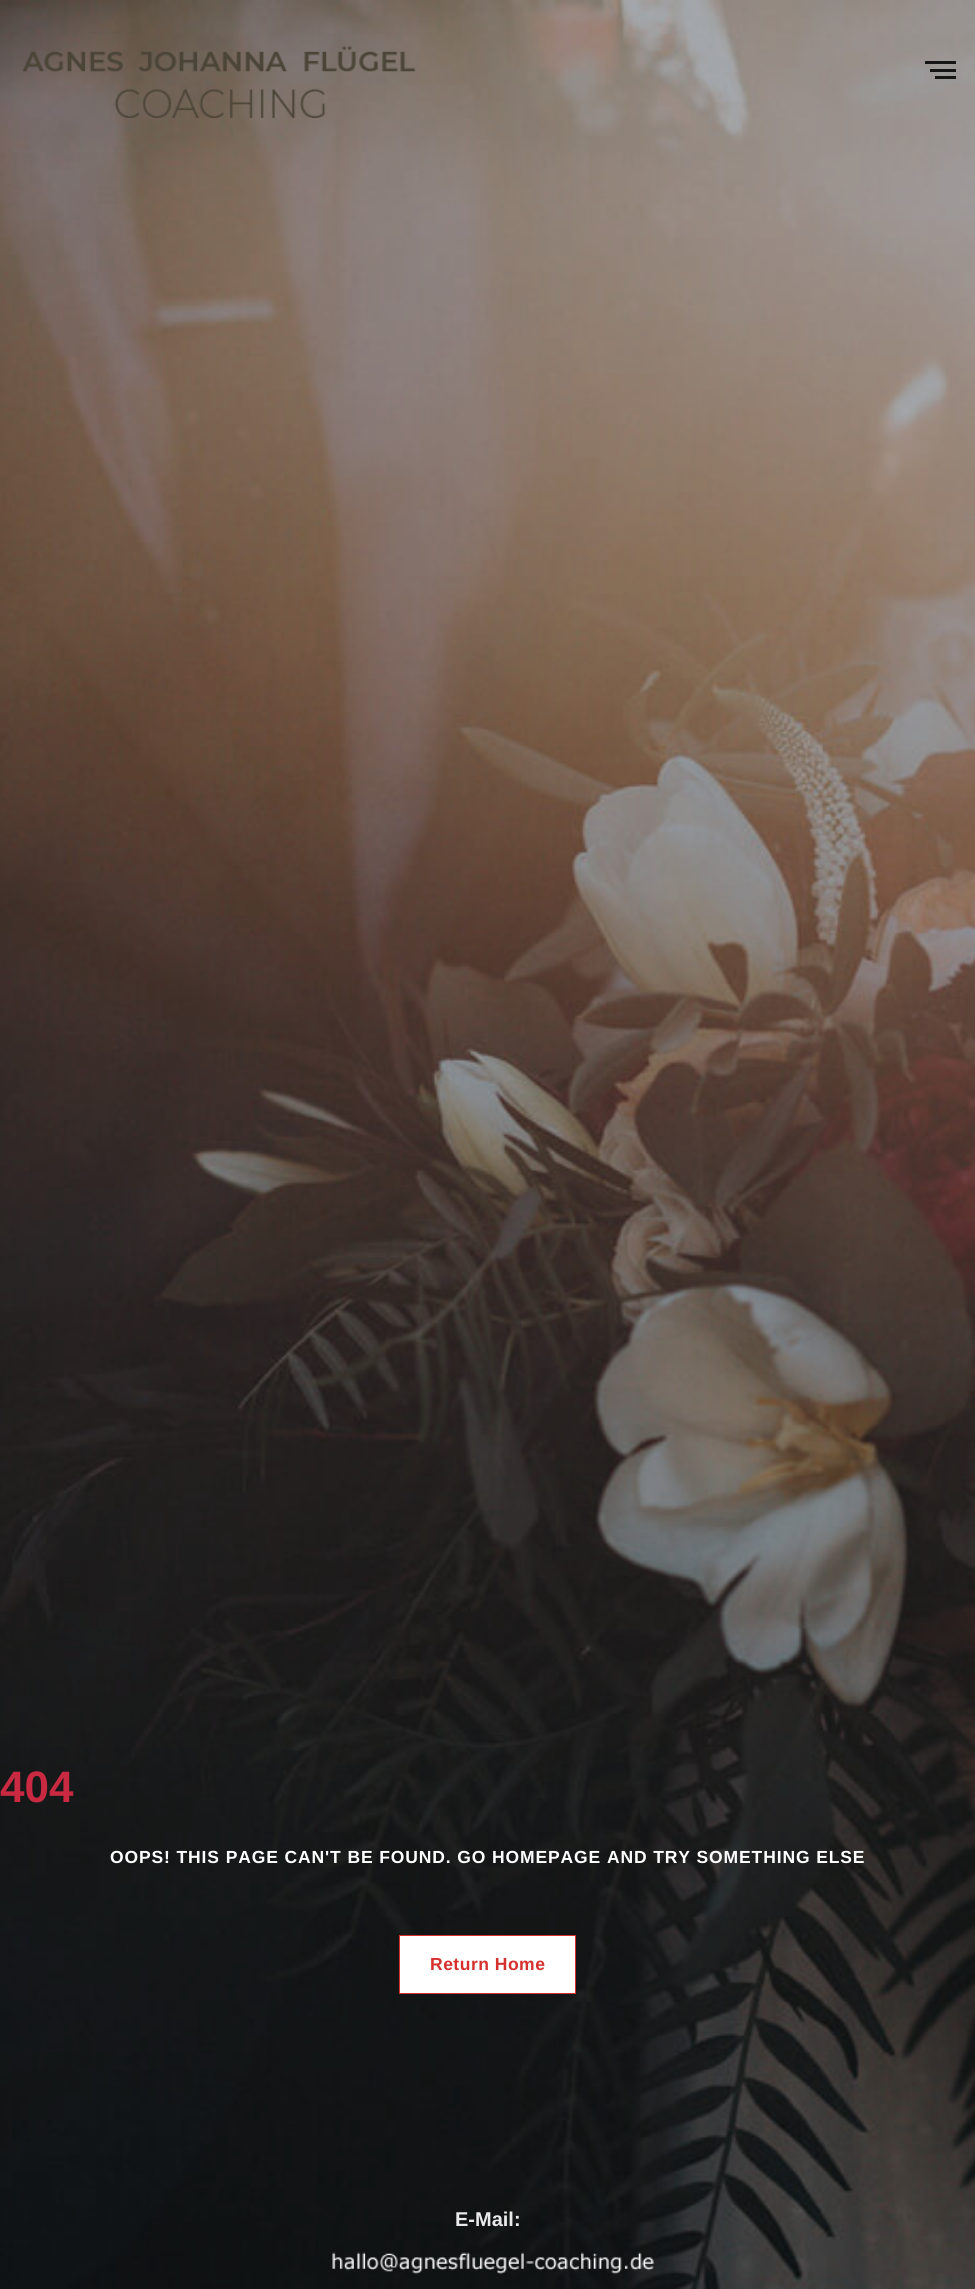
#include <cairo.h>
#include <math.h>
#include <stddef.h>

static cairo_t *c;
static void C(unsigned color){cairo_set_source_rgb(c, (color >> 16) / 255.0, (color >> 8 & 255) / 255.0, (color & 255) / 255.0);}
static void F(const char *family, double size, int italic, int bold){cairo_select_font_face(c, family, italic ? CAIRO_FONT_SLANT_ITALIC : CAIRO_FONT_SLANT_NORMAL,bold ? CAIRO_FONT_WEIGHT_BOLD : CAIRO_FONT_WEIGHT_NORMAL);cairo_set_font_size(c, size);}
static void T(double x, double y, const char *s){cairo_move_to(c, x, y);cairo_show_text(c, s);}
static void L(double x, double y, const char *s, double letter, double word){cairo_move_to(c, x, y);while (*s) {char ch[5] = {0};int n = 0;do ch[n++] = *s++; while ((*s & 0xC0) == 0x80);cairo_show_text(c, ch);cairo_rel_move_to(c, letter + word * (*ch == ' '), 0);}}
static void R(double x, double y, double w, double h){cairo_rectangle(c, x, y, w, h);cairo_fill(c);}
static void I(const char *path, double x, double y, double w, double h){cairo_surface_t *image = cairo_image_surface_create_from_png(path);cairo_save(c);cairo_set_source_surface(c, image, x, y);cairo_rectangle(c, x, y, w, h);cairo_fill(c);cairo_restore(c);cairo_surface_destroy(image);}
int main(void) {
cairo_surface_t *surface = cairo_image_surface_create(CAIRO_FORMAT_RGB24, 975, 2289);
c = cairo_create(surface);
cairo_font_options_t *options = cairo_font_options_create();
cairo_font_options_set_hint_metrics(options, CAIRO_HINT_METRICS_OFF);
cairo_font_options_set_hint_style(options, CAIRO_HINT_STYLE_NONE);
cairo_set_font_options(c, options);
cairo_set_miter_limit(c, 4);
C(0xffffff);
cairo_paint(c);
I("2.png",0,0,975,2289);
I("1.png",22,46,394,72);
C(0x151515);
R(925,61,31,3);
R(930,69,26,3);
R(935,76,21,3);
F("Liberation Sans",44,0,1);
C(0xc92a42);
T(0,1802,"404");
F("Liberation Sans",17.5,0,1);
C(0xffffff);
L(110,1863,"OOPS! THIS PAGE CAN'T BE FOUND. GO HOMEPAGE AND TRY SOMETHING ELSE",.88,0);
cairo_rectangle(c,399.5,1935.5,176,58);
cairo_fill_preserve(c);
C(0xd5302e);
cairo_set_line_width(c,1);
cairo_stroke(c);
L(430,1970,"Return Home",.5,0);
F("Liberation Sans",20,0,1);
C(0xeaeaea);
T(455,2226,"E-Mail:");
I("3.png",332,2252,322,22);
cairo_surface_write_to_png(surface, "o.png");
cairo_font_options_destroy(options);
cairo_destroy(c);
cairo_surface_destroy(surface);
return 0;
}
